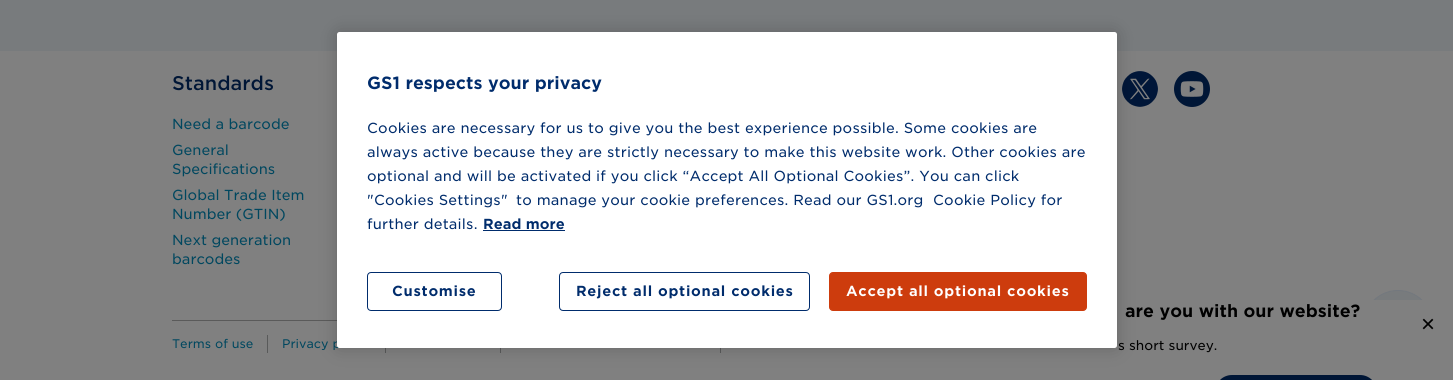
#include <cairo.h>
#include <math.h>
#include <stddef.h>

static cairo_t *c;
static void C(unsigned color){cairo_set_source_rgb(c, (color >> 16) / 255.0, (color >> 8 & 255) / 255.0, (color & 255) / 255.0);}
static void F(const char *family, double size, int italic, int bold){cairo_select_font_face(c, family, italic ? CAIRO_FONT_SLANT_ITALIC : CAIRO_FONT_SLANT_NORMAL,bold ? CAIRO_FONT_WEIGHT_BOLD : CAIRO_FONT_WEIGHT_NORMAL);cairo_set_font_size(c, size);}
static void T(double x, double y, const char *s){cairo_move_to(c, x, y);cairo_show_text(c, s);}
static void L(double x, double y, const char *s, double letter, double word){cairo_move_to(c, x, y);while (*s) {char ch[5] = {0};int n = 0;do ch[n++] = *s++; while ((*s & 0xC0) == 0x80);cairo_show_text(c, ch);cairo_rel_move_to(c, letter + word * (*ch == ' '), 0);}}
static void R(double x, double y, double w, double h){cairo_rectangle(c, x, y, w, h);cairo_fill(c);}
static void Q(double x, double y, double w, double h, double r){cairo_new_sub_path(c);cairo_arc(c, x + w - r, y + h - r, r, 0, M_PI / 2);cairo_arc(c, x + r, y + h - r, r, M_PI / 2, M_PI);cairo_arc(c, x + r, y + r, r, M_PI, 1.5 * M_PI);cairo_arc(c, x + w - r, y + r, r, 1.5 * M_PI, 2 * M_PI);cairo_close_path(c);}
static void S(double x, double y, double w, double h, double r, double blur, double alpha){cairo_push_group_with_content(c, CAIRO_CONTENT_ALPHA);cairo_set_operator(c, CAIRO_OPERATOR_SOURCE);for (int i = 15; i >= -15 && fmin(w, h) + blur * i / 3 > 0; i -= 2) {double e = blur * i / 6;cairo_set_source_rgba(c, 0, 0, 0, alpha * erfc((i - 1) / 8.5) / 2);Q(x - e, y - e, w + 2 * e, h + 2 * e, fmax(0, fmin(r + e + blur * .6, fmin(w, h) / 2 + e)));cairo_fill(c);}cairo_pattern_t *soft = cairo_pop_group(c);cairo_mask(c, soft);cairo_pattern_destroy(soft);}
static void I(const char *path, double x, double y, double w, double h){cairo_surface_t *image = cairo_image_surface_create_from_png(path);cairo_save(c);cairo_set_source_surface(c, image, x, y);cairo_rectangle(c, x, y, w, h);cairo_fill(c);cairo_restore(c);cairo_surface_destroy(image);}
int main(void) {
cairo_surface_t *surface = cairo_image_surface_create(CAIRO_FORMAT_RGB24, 1453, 380);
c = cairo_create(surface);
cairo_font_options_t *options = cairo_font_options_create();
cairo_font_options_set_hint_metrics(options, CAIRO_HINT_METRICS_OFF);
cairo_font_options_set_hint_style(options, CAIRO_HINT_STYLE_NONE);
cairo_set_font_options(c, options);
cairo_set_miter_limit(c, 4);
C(0x808080);
cairo_paint(c);
C(0x787b7d);
R(0,0,1453,51);
F("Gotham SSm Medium",19,0,0);
C(0x001636);
T(172,90,"Standards");
F("Gotham SSm",14,0,0);
C(0x00475f);
T(172,129,"Need a barcode");
T(172,155,"General");
T(172,174,"Specifications");
T(172,200,"Global Trade Item");
T(172,219,"Number (GTIN)");
T(172,245,"Next generation");
T(172,264,"barcodes");
I("1.png",1122,71,36,36);
I("2.png",1174,71,36,36);
C(0x5a5a5a);
R(172,320,165,1);
C(0x595a5a);
R(267,335,1,18);
F("Gotham SSm",12,0,0);
C(0x00475f);
T(172,348,"Terms of use");
C(0x595a5a);
R(385,348,1,5);
C(0x00475f);
T(282,348,"Privacy p");
C(0x595a5a);
R(500,348,1,5);
R(720,348,1,5);
C(0x787b7d);
cairo_new_path(c);
cairo_arc(c,1398,325,34.5,0,2 * M_PI);
cairo_fill_preserve(c);
C(0x73787e);
cairo_set_line_width(c,1);
cairo_stroke(c);
C(0x808080);
Q(949,300,500,76,4);
cairo_fill(c);
F("Gotham SSm",17,0,1);
C(0x000000);
T(1125,317,"are you with our website?");
F("Gotham SSm",13,0,0);
T(1118,350,"s short survey.");
C(0x001636);
Q(1215,375,162,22,17);
cairo_fill(c);
F("Liberation Sans",24,0,0);
C(0x000000);
T(1421,332,"×");
C(0x000000);
S(337,32,780,316,2.5,9,.2);
C(0xffffff);
Q(337,32,780,316,2.5);
cairo_fill(c);
F("Gotham SSm",17,0,1);
C(0x002c6c);
T(367,89,"GS1 respects your privacy");
F("Gotham SSm",14,0,0);
L(367,133,"Cookies are necessary for us to give you the best experience possible. Some cookies are",.2,0);
L(367,157,"always active because they are strictly necessary to make this website work. Other cookies are",.2,0);
L(367,181,"optional and will be activated if you click “Accept All Optional Cookies”. You can click",.2,0);
L(367,205,"\"Cookies Settings\"",.2,0);
L(516,205,"to manage your cookie preferences. Read our GS1.org",.2,0);
L(933,205,"Cookie Policy for",.2,0);
L(367,229,"further details.",.2,0);
F("Gotham SSm",14,0,1);
T(483,229,"Read more");
R(483,230,82,1);
Q(367.5,272.5,134,38,3.5);
cairo_stroke(c);
L(392,296,"Customise",.7,0);
Q(559.5,272.5,250,38,3.5);
cairo_stroke(c);
L(576,296,"Reject all optional cookies",.7,0);
C(0xcd3c0d);
Q(829.5,272.5,257,38,3.5);
cairo_fill_preserve(c);
cairo_stroke(c);
C(0xffffff);
L(846,296,"Accept all optional cookies",.7,0);
cairo_surface_write_to_png(surface, "o.png");
cairo_font_options_destroy(options);
cairo_destroy(c);
cairo_surface_destroy(surface);
return 0;
}
